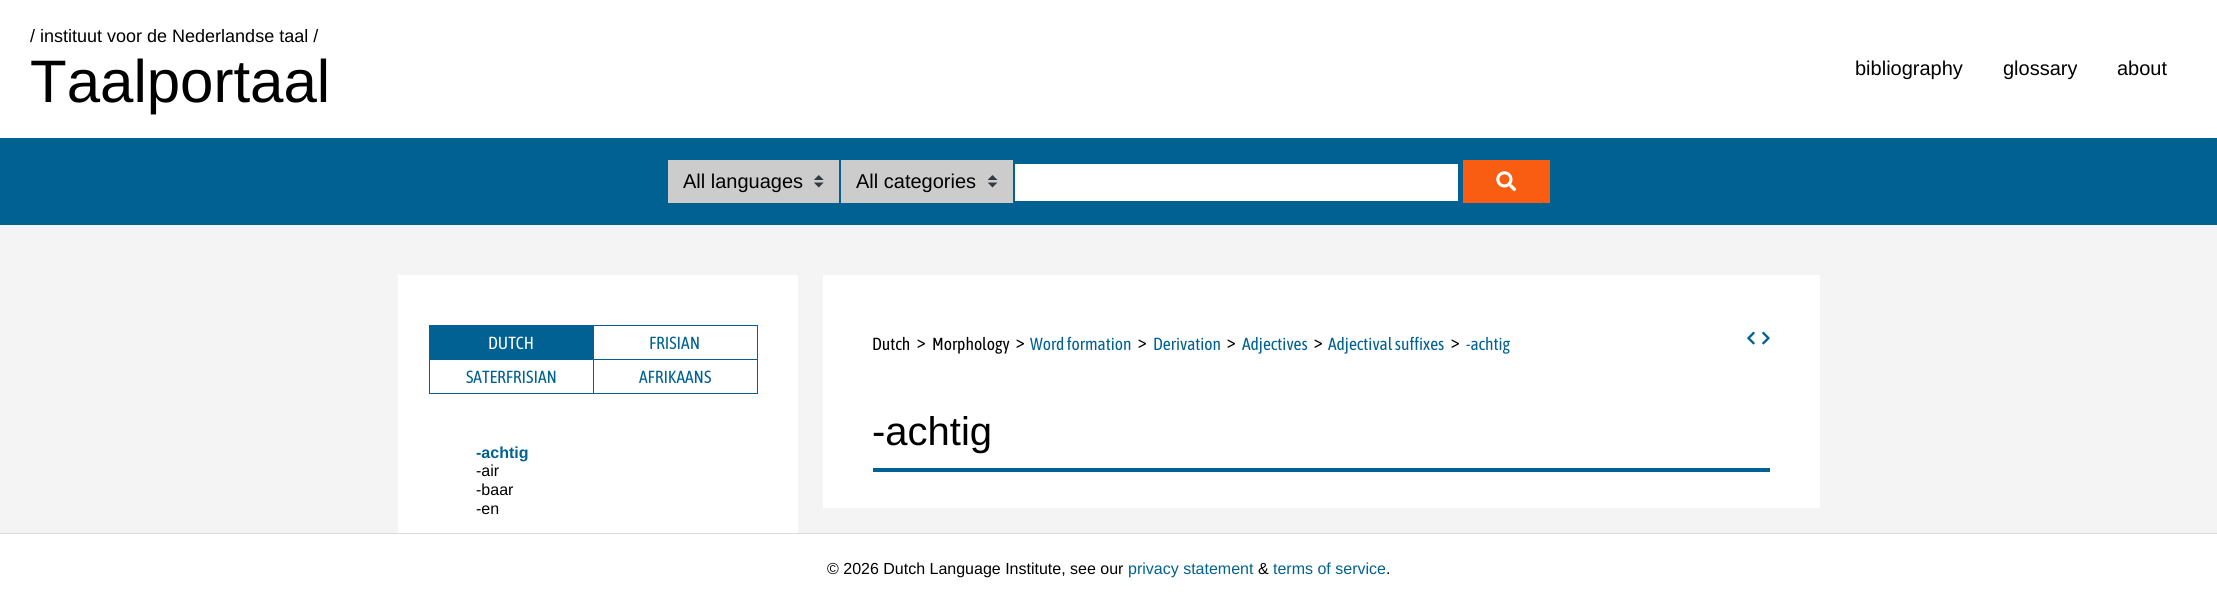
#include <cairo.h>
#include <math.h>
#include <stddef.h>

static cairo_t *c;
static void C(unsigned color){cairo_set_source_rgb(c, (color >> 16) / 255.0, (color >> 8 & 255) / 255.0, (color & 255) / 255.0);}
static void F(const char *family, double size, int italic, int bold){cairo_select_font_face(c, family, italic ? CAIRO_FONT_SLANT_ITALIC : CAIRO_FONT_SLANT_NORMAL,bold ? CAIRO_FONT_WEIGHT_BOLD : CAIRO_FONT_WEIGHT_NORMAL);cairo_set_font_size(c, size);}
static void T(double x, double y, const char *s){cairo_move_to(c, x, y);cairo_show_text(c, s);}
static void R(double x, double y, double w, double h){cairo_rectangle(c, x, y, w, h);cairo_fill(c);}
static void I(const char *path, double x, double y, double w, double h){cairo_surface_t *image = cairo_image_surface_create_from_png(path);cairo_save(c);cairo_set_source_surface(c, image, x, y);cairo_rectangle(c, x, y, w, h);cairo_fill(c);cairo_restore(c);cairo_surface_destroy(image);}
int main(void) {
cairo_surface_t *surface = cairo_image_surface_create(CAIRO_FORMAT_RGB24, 2217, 607);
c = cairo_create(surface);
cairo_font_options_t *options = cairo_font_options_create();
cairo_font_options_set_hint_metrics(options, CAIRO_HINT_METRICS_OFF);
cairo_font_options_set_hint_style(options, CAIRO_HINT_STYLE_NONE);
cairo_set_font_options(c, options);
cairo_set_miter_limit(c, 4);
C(0xffffff);
cairo_paint(c);
F("Liberation Sans",18,0,0);
C(0x000000);
T(30,42,"/ instituut voor de Nederlandse taal /");
F("Liberation Sans",60,0,0);
T(30,102,"Taalportaal");
F("Liberation Sans",20,0,0);
T(1855,75,"bibliography");
T(2003,75,"glossary");
T(2117,75,"about");
C(0x006192);
R(0,138,2217,87);
C(0xcccccc);
R(668,160,171,43);
I("1.png",814,175,10,13);
C(0x000000);
T(683,188,"All languages");
C(0xcccccc);
R(841,160,172,43);
I("2.png",988,175,10,13);
C(0x000000);
T(856,188,"All categories");
C(0xffffff);
R(1015,164,443,37);
C(0xf95d11);
R(1463,160,87,43);
I("3.png",1496,171,21,21);
C(0xf4f4f4);
R(0,225,2217,308);
C(0xffffff);
R(398,275,400,258);
C(0x006192);
R(429,325,164,34);
F("Asap Condensed",17.5,0,0);
C(0xffffff);
T(488,349,"DUTCH");
cairo_rectangle(c,593.5,325.5,164,34);
C(0x006192);
cairo_set_line_width(c,1);
cairo_stroke(c);
T(649,349,"FRISIAN");
cairo_rectangle(c,429.5,359.5,164,34);
cairo_stroke(c);
T(466,383,"SATERFRISIAN");
cairo_rectangle(c,593.5,359.5,164,34);
cairo_stroke(c);
T(639,383,"AFRIKAANS");
F("Liberation Sans",16,0,1);
T(476,458,"-achtig");
F("Liberation Sans",16,0,0);
C(0x000000);
T(476,476,"-air");
T(476,495,"-baar");
T(476,514,"-en");
C(0xffffff);
R(823,275,997,233);
F("Asap Condensed",17.5,0,0);
C(0x000000);
T(872,350,"Dutch");
F("Asap Condensed",19,0,0);
T(917,348,">");
F("Asap Condensed",17.5,0,0);
T(932,350,"Morphology");
F("Asap Condensed",19,0,0);
T(1016,348,">");
F("Asap Condensed",17.5,0,0);
C(0x006192);
T(1030,350,"Word formation");
F("Asap Condensed",19,0,0);
C(0x000000);
T(1138,348,">");
F("Asap Condensed",17.5,0,0);
C(0x006192);
T(1153,350,"Derivation");
F("Asap Condensed",19,0,0);
C(0x000000);
T(1227,348,">");
F("Asap Condensed",17.5,0,0);
C(0x006192);
T(1242,350,"Adjectives");
F("Asap Condensed",19,0,0);
C(0x000000);
T(1314,348,">");
F("Asap Condensed",17.5,0,0);
C(0x006192);
T(1328,350,"Adjectival suffixes");
F("Asap Condensed",19,0,0);
C(0x000000);
T(1451,348,">");
F("Asap Condensed",17.5,0,0);
C(0x006192);
T(1466,350,"-achtig");
I("4.png",1747,331,8,14);
I("5.png",1762,331,8,14);
R(873,468,897,4);
F("Liberation Sans",40,0,0);
C(0x000000);
T(872,445,"-achtig");
C(0xdbdada);
R(0,533,2217,1);
F("Liberation Sans",16,0,0);
C(0x000000);
T(827,574,"© 2026 Dutch Language Institute, see our");
C(0x006192);
T(1128,574,"privacy statement");
C(0x000000);
T(1258,574,"&");
C(0x006192);
T(1273,574,"terms of service");
C(0x000000);
T(1386,574,".");
cairo_surface_write_to_png(surface, "o.png");
cairo_font_options_destroy(options);
cairo_destroy(c);
cairo_surface_destroy(surface);
return 0;
}
